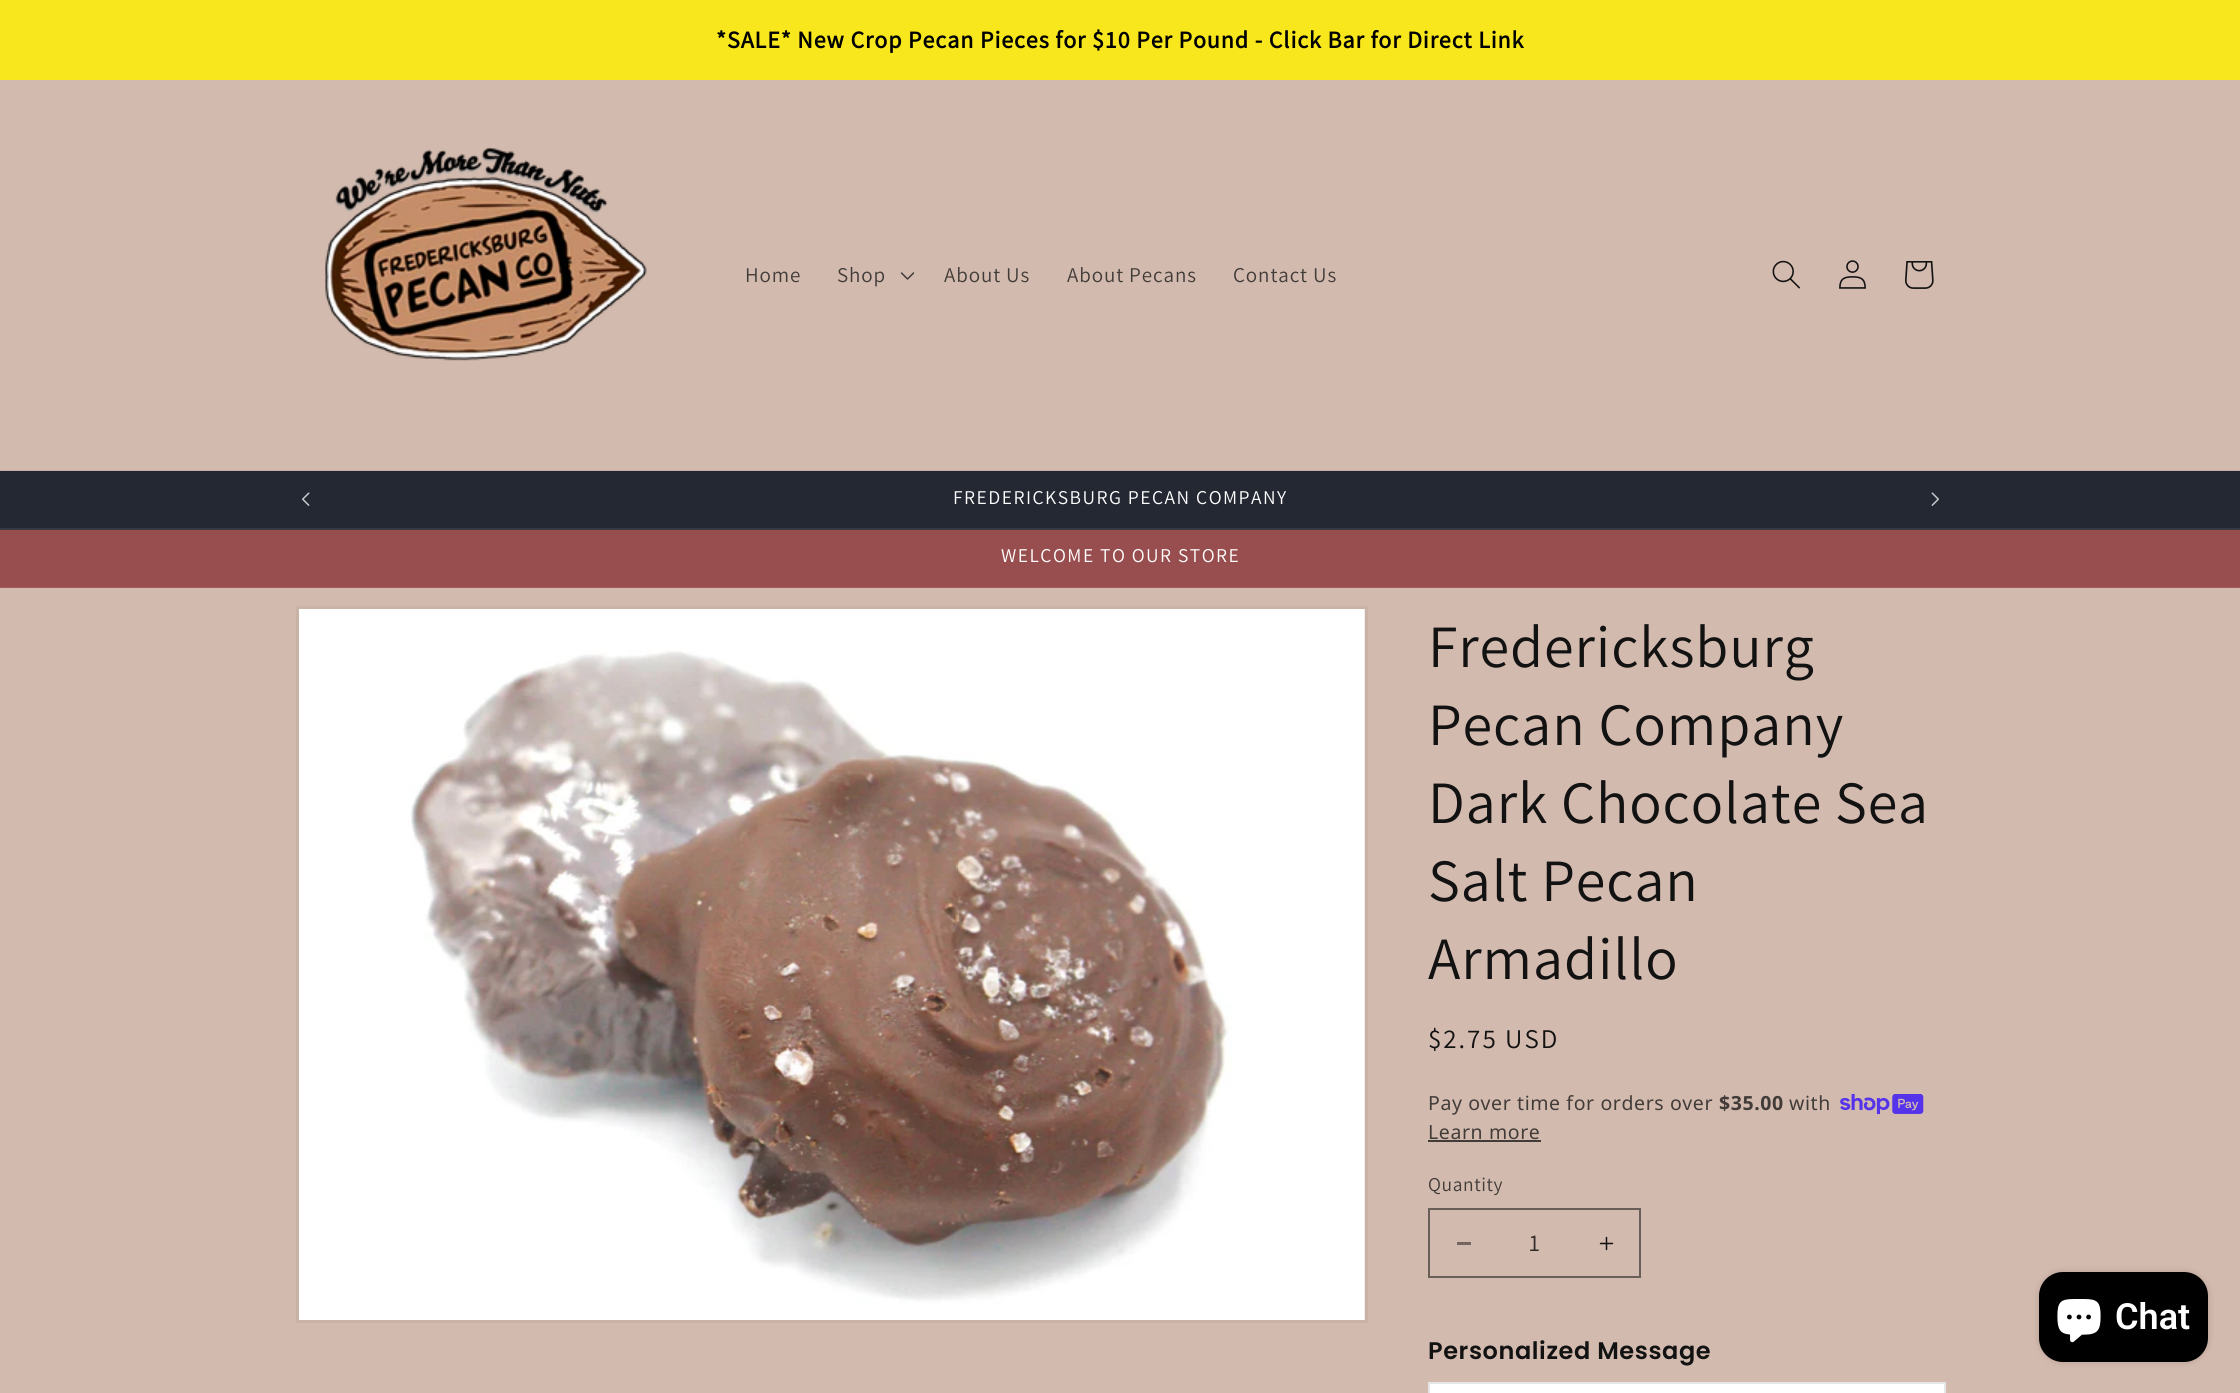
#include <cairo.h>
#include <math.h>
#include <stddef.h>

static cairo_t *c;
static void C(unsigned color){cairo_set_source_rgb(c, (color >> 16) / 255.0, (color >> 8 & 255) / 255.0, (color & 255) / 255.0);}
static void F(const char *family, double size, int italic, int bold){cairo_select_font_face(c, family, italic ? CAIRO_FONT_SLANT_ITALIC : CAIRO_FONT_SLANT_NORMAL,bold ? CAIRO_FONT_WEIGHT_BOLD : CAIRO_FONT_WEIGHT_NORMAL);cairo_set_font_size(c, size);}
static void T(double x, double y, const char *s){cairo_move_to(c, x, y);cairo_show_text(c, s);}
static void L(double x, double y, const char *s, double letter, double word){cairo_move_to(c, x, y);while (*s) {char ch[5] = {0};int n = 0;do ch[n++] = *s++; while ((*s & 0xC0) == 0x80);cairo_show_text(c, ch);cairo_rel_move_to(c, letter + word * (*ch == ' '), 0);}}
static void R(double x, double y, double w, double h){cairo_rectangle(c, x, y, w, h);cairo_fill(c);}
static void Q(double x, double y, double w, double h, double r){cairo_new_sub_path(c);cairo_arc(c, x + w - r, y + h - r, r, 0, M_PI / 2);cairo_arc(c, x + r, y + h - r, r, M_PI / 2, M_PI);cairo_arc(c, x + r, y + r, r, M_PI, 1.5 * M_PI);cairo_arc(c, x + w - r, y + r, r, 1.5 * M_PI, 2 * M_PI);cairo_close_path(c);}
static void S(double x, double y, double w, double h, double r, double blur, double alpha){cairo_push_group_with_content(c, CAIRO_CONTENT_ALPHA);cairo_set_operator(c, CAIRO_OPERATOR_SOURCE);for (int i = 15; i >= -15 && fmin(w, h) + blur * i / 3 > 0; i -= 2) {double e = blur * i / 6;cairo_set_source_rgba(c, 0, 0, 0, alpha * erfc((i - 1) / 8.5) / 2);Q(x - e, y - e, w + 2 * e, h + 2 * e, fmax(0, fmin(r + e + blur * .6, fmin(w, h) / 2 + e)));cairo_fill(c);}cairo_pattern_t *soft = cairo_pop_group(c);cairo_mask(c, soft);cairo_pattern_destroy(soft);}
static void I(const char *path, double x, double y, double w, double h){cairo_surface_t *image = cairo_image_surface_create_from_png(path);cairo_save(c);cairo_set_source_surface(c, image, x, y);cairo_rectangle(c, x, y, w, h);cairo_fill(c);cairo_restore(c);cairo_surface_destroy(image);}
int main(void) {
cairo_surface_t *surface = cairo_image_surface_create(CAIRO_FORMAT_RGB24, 2240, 1393);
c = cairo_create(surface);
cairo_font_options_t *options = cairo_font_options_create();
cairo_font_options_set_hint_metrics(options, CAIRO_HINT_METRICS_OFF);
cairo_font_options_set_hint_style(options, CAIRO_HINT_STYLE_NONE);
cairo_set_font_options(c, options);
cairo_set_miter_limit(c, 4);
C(0xd3baae);
cairo_paint(c);
C(0xc4ada2);
R(0,470,2240,1);
C(0xf8e71c);
R(0,0,2240,80);
F("Source Sans Pro",24,0,1);
C(0x000000);
L(716,48,"*SALE* New Crop Pecan Pieces for $10 Per Pound - Click Bar for Direct Link",.9,0);
I("1.png",325,147,322,214);
F("Assistant",21,0,0);
C(0x423c39);
L(745,282,"Home",.9,0);
L(837,282,"Shop",.9,0);
I("2.png",900,272,15,8);
L(944,282,"About Us",.9,0);
L(1067,282,"About Pecans",.9,0);
L(1233,282,"Contact Us",.9,0);
I("3.png",1772,260,28,29);
I("4.png",1839,260,27,29);
I("5.png",1905,261,29,28);
C(0x242833);
R(0,472,2240,56);
C(0x232630);
R(0,471,2240,1);
C(0x363943);
R(0,528,2240,2);
I("6.png",302,492,8,14);
F("Assistant",19.5,0,0);
C(0xffffff);
L(953,504,"FREDERICKSBURG PECAN COMPANY",1.5,0);
I("7.png",1931,492,8,14);
C(0x984e4e);
R(0,530,2240,57);
C(0xa05c5c);
R(0,587,2240,1);
C(0xffffff);
L(1001,562,"WELCOME TO OUR STORE",1.5,0);
cairo_rectangle(c,297.5,607.5,1069,714);
C(0xc9b2a6);
cairo_set_line_width(c,3);
cairo_stroke(c);
I("8.png",299,609,1066,711);
F("Assistant",60,0,0);
C(0x121212);
L(1428,667,"Fredericksburg",.9,0);
L(1428,745,"Pecan Company",.9,0);
L(1428,823,"Dark Chocolate Sea",.9,0);
L(1428,901,"Salt Pecan",.9,0);
L(1428,979,"Armadillo",.9,0);
F("Assistant",27,0,0);
L(1428,1048,"$2.75 USD",2,0);
F("Noto Sans",19.5,0,0);
C(0x423c39);
L(1428,1110,"Pay over time for orders over",.6,0);
F("Noto Sans",19.5,0,1);
L(1719,1110,"$35.00",.6,0);
F("Noto Sans",19.5,0,0);
L(1789,1110,"with",.6,0);
I("9.png",1840,1094,84,21);
L(1428,1139,"Learn more",.6,0);
R(1428,1140,113,2);
F("Assistant",19.5,0,0);
L(1428,1191,"Quantity",.6,0);
C(0x736660);
R(1457,1242,14,3);
I("10.png",1599,1236,15,15);
cairo_rectangle(c,1429,1209,211,68);
C(0x695e58);
cairo_set_line_width(c,2);
cairo_stroke(c);
F("Assistant",24,0,0);
C(0x2f2b29);
T(1529,1251,"1");
F("Poppins SemiBold",24,0,0);
C(0x121212);
L(1428,1359,"Personalized Message",.6,0);
C(0xffffff);
cairo_rectangle(c,1429,1383,516,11);
cairo_fill_preserve(c);
C(0xe6e6e6);
cairo_stroke(c);
C(0x000000);
S(2039,1272,169,90,24,4,.15);
C(0x000000);
Q(2039,1272,169,90,24);
cairo_fill(c);
I("11.png",2057,1299,44,44);
F("Roboto SemiBold",36,0,0);
C(0xffffff);
T(2115,1329,"Chat");
cairo_surface_write_to_png(surface, "o.png");
cairo_font_options_destroy(options);
cairo_destroy(c);
cairo_surface_destroy(surface);
return 0;
}
